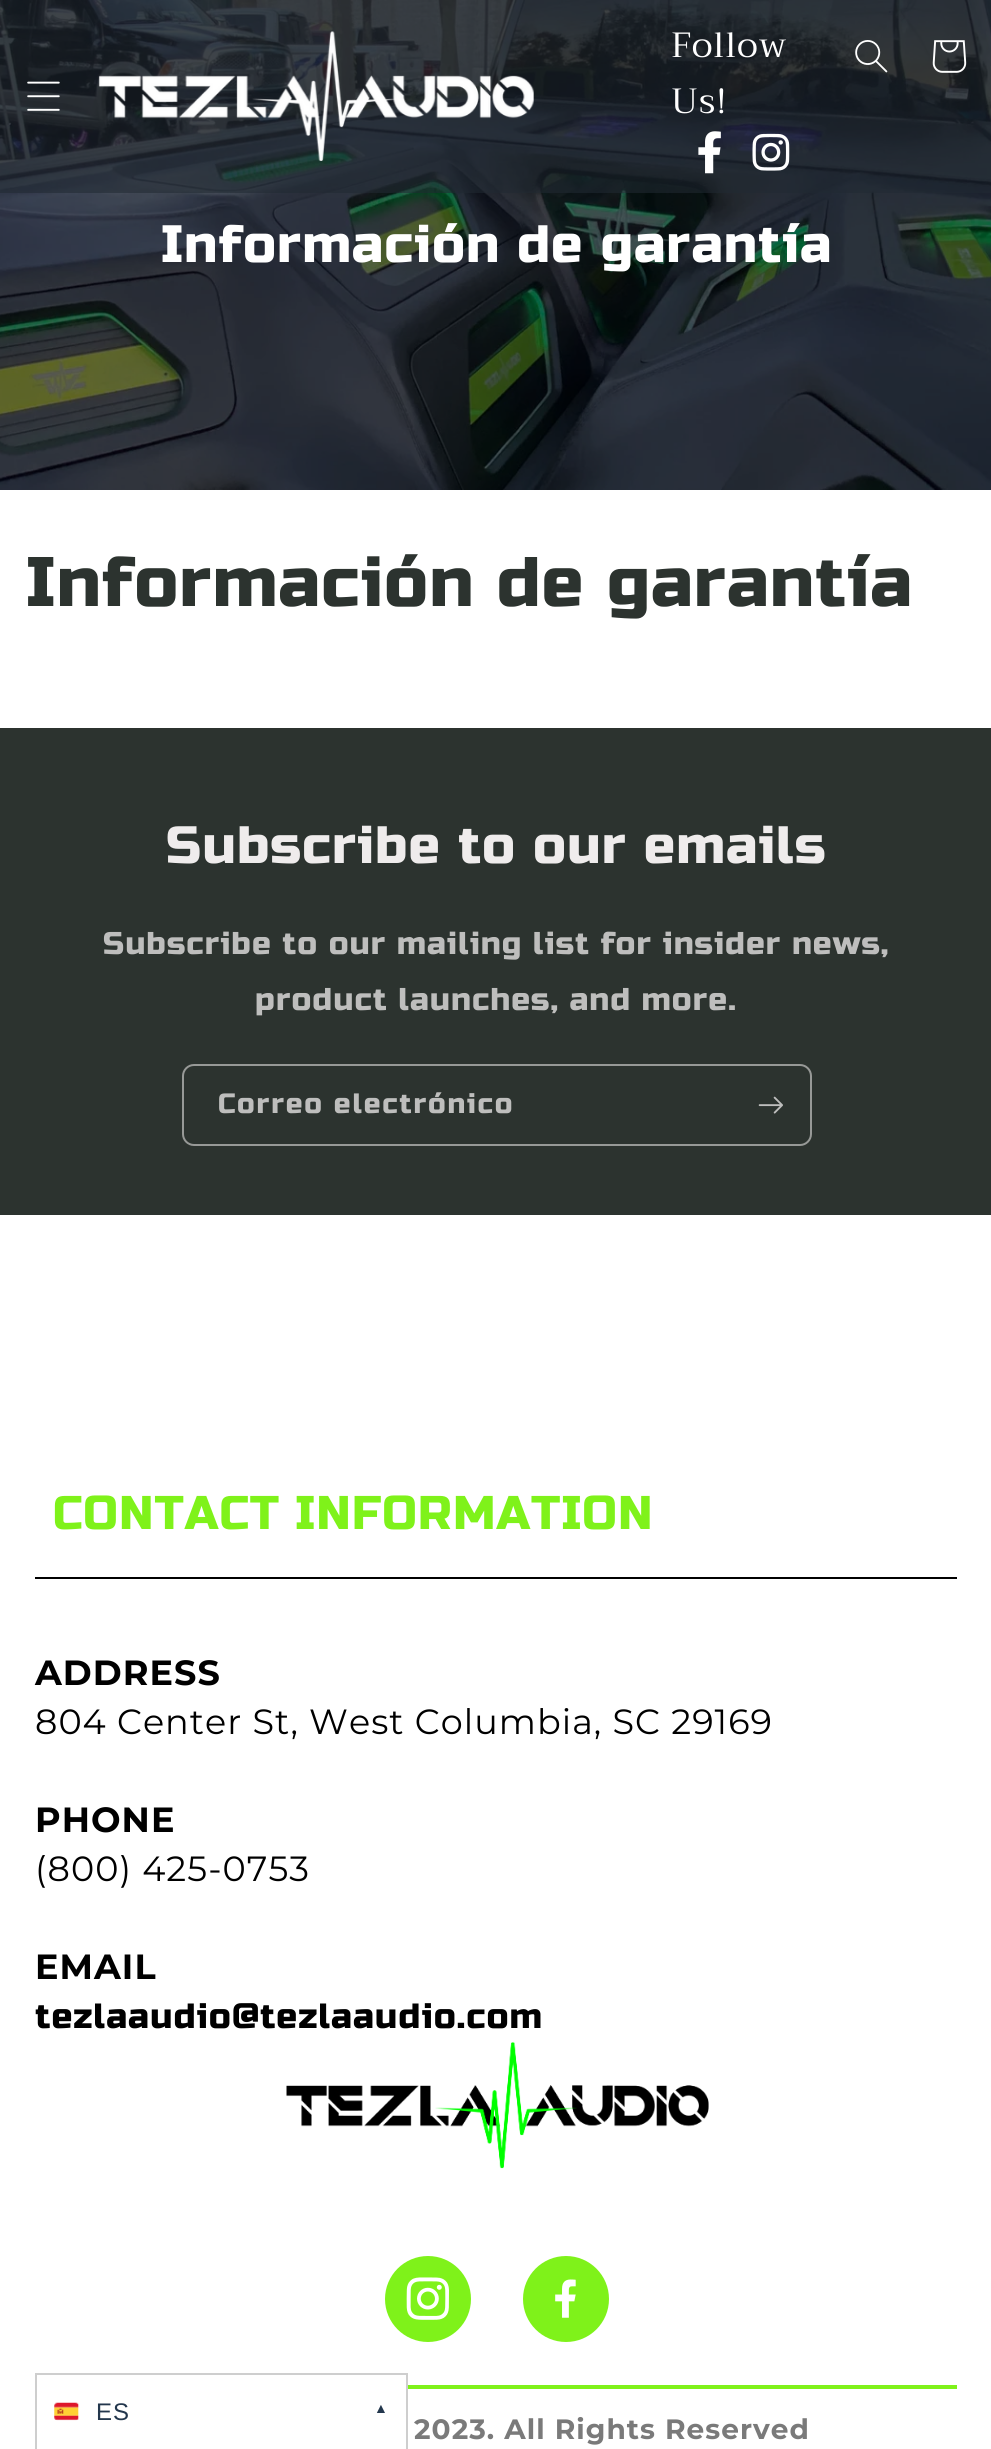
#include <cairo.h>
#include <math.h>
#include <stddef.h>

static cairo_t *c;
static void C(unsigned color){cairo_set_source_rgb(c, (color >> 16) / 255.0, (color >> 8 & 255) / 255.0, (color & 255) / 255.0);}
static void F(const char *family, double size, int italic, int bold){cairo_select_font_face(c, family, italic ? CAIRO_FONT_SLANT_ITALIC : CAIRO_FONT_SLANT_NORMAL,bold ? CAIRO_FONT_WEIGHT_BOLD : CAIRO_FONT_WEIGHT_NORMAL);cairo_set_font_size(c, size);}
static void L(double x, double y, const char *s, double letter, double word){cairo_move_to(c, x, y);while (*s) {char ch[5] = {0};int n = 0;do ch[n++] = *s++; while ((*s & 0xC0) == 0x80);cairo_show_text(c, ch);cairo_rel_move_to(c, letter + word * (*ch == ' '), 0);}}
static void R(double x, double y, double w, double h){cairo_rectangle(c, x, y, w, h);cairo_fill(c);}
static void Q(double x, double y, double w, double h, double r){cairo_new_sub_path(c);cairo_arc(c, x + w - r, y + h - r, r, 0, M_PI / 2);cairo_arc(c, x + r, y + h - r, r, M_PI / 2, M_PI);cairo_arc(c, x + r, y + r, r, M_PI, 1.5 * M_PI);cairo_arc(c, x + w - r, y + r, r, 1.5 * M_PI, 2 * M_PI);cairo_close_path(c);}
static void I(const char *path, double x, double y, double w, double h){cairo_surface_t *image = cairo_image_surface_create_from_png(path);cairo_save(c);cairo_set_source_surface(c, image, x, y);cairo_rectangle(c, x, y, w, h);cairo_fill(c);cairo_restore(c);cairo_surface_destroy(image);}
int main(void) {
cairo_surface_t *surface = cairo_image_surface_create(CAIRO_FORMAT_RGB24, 991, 2449);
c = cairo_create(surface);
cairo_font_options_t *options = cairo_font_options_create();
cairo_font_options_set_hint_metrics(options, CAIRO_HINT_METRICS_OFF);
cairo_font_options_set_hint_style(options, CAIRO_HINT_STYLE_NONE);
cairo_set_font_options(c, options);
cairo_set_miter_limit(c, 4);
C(0xffffff);
cairo_paint(c);
I("7.png",0,0,991,490);
cairo_set_source_rgba(c,0.129,0.161,0.2,0.56);
R(0,0,991,193);
I("1.png",27,81,33,30);
I("2.png",98,31,436,130);
F("Trirong",35,0,0);
C(0xffffff);
L(671,57,"Follow",1.05,0);
L(671,113,"Us!",1.05,0);
I("3.png",698,131,23,43);
I("4.png",752,133,38,38);
I("5.png",855,40,33,33);
I("6.png",932,40,35,33);
F("Russo One",52.5,0,0);
L(161,262,"Información de garantía",1.05,0);
F("Russo One",70,0,0);
C(0x2c332f);
L(26,606,"Información de garantía",1.05,0);
R(0,728,991,487);
F("Russo One",52.5,0,0);
C(0xefecec);
L(166,863,"Subscribe to our emails",1.05,0);
F("Russo One",31.5,0,0);
C(0xbebebd);
L(103,954,"Subscribe to our mailing list for insider news,",1.05,0);
L(255,1010,"product launches, and more.",1.05,0);
Q(183,1065,628,80,11);
C(0x979997);
cairo_stroke(c);
F("Russo One",28,0,0);
C(0xbebebd);
L(218,1113,"Correo electrónico",1.75,0);
I("8.png",758,1096,25,18);
F("Russo One",47.25,0,0);
C(0x7ff21a);
L(53,1529,"CONTACT INFORMATION",1.05,0);
C(0x000000);
R(35,1577,922,2);
F("Montserrat",35,0,1);
L(35,1685,"ADDRESS",1.05,0);
F("Montserrat",35,0,0);
L(35,1734,"804 Center St, West Columbia, SC 29169",1.05,0);
F("Montserrat",35,0,1);
L(35,1832,"PHONE",1.05,0);
F("Montserrat",35,0,0);
L(35,1881,"(800) 425-0753",1.05,0);
F("Montserrat",35,0,1);
L(35,1979,"EMAIL",1.05,0);
F("Russo One",35,0,0);
L(35,2028,"tezlaaudio@tezlaaudio.com",1.05,0);
I("9.png",286,2042,423,127);
C(0x7ff21a);
cairo_arc(c,428,2299,43,0,2 * M_PI);
cairo_fill(c);
I("10.png",406,2277,43,43);
cairo_arc(c,566,2299,43,0,2 * M_PI);
cairo_fill(c);
I("11.png",555,2279,21,39);
R(408,2385,549,4);
F("Montserrat",28,0,1);
C(0x7a7a7a);
L(414,2439,"2023. All Rights Reserved",1.05,0);
cairo_rectangle(c,36,2374,371,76);
C(0xcecece);
cairo_stroke(c);
I("12.png",54,2402,26,19);
F("Liberation Sans",24,0,0);
C(0x23374d);
L(96,2420,"ES",1.05,0);
F("Liberation Sans",14,0,0);
L(374,2413,"▲",1.05,0);
cairo_surface_write_to_png(surface, "o.png");
cairo_font_options_destroy(options);
cairo_destroy(c);
cairo_surface_destroy(surface);
return 0;
}
